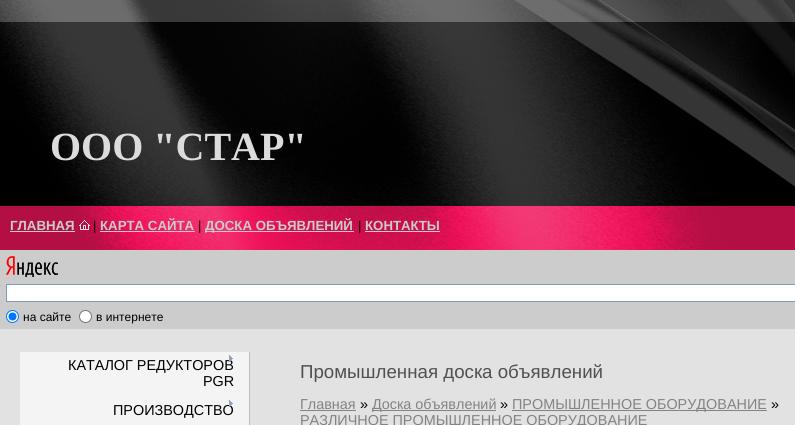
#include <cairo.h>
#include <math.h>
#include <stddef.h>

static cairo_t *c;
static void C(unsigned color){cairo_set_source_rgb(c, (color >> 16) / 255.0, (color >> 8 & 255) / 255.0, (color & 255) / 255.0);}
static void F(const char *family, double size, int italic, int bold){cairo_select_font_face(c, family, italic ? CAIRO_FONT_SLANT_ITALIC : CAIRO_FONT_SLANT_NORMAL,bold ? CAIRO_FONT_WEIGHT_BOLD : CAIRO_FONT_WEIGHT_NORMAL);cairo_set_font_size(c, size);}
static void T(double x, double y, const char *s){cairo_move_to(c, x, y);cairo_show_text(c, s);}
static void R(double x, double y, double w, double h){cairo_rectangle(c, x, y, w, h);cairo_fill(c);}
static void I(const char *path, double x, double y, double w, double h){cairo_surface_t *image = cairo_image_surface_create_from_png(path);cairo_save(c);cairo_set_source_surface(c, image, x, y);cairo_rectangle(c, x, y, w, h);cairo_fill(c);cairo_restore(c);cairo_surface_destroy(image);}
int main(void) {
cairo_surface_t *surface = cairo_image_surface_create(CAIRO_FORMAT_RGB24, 795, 425);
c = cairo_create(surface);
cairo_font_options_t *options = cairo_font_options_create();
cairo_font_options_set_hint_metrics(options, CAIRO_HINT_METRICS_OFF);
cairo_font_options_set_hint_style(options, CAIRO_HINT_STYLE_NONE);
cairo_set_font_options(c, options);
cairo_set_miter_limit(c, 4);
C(0xe2e2e2);
cairo_paint(c);
I("1.png",0,0,795,250);
F("Liberation Serif",40,0,1);
C(0xdcdcdc);
T(50,160,"ООО \"СТАР\"");
F("Liberation Sans",13.25,0,1);
C(0xcccccc);
T(10,230,"ГЛАВНАЯ");
R(10,231,65,1);
I("2.png",79,220,11,10);
F("Liberation Sans",13,0,0);
C(0x000000);
T(93,230,"|");
F("Liberation Sans",13.25,0,1);
C(0xcccccc);
T(100,230,"КАРТА САЙТА");
R(100,231,95,1);
F("Liberation Sans",13,0,0);
C(0x000000);
T(198,230,"|");
C(0xcccccc);
R(205,231,149,1);
F("Liberation Sans",13.25,0,1);
T(205,230,"ДОСКА ОБЪЯВЛЕНИЙ");
F("Liberation Sans",13,0,0);
C(0x000000);
T(358,230,"|");
F("Liberation Sans",13.25,0,1);
C(0xcccccc);
T(365,230,"КОНТАКТЫ");
R(365,231,75,1);
R(0,250,795,79);
I("3.png",6,256,52,21);
C(0xffffff);
cairo_rectangle(c,6.5,284.5,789,17);
cairo_fill_preserve(c);
C(0x7f9db9);
cairo_set_line_width(c,1);
cairo_stroke(c);
C(0xffffff);
cairo_arc(c,12.5,316.5,6,0,2 * M_PI);
cairo_fill_preserve(c);
C(0x0075ff);
cairo_stroke(c);
cairo_arc(c,12.5,316.5,4,0,2 * M_PI);
cairo_fill(c);
F("Liberation Sans",12,0,0);
C(0x000000);
T(23,321,"на сайте");
C(0xffffff);
cairo_new_path(c);
cairo_arc(c,85.5,316.5,6,0,2 * M_PI);
cairo_fill_preserve(c);
C(0x767676);
cairo_stroke(c);
C(0x000000);
T(96,321,"в интернете");
C(0xf4f4f4);
R(20,352,229,73);
C(0xbdbdbd);
R(249,352,1,73);
F("Liberation Sans",14.4,0,0);
C(0x000000);
T(68,370,"КАТАЛОГ РЕДУКТОРОВ");
I("4.png",229,355,4,7);
T(203,386,"PGR");
T(113,415,"ПРОИЗВОДСТВО");
I("5.png",229,400,4,7);
F("Liberation Sans",18.7,0,0);
C(0x505050);
T(300,378,"Промышленная доска объявлений");
F("Liberation Sans",14.4,0,0);
C(0x838383);
T(300,409,"Главная");
R(300,410,56,1);
C(0x000000);
T(360,409,"»");
C(0x838383);
R(372,410,124,1);
T(372,409,"Доска объявлений");
C(0x000000);
T(500,409,"»");
C(0x838383);
R(512,410,255,1);
T(512,409,"ПРОМЫШЛЕННОЕ ОБОРУДОВАНИЕ");
C(0x000000);
T(771,409,"»");
C(0x838383);
T(300,425,"РАЗЛИЧНОЕ ПРОМЫШЛЕННОЕ ОБОРУДОВАНИЕ");
cairo_surface_write_to_png(surface, "o.png");
cairo_font_options_destroy(options);
cairo_destroy(c);
cairo_surface_destroy(surface);
return 0;
}
